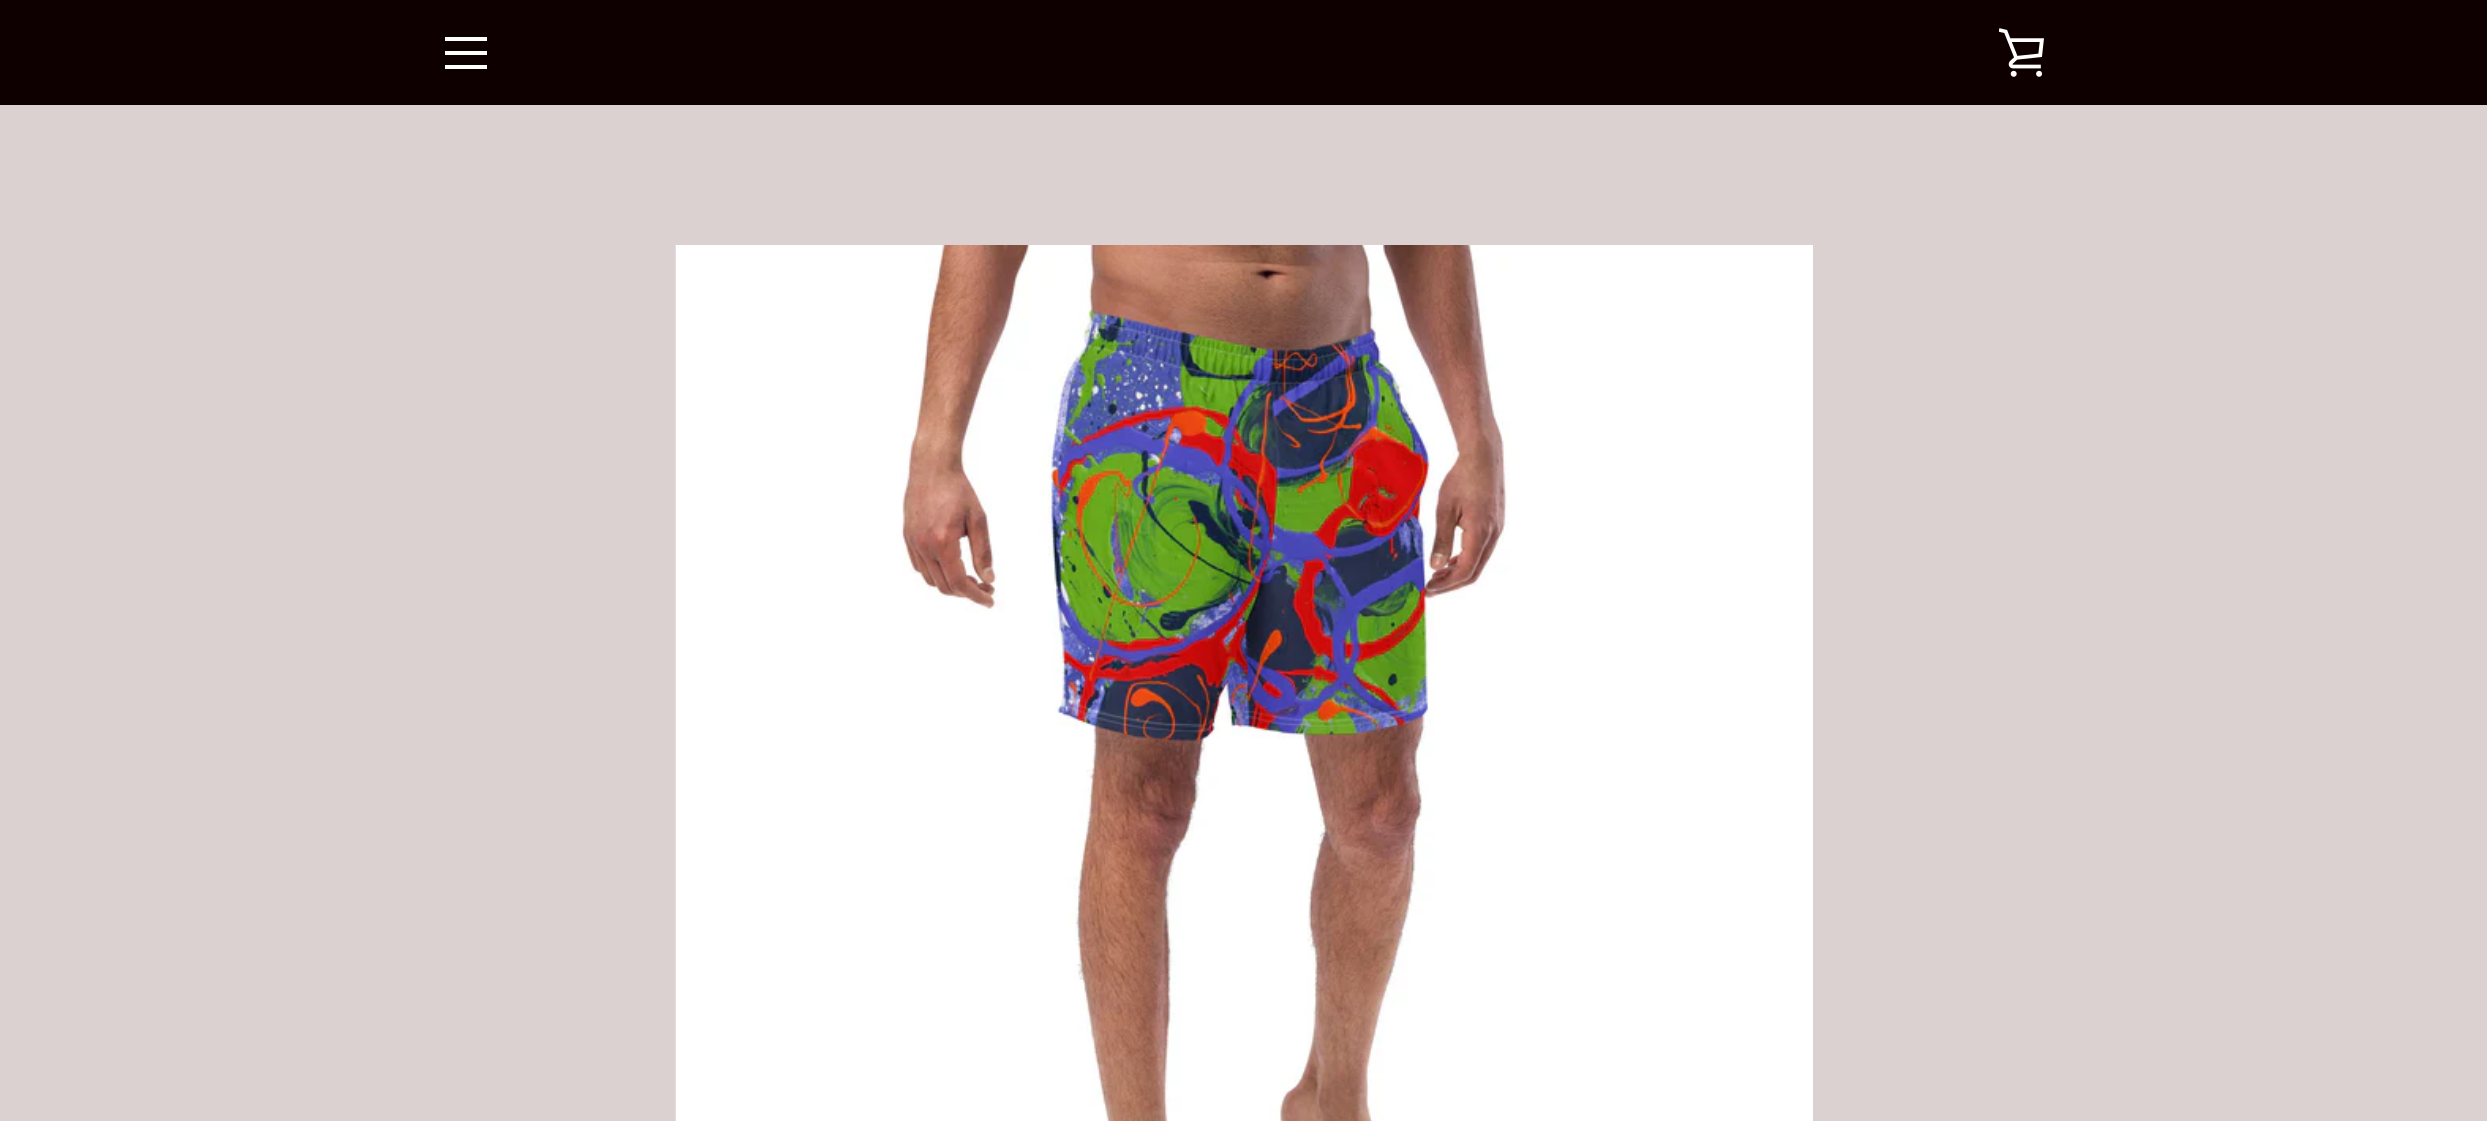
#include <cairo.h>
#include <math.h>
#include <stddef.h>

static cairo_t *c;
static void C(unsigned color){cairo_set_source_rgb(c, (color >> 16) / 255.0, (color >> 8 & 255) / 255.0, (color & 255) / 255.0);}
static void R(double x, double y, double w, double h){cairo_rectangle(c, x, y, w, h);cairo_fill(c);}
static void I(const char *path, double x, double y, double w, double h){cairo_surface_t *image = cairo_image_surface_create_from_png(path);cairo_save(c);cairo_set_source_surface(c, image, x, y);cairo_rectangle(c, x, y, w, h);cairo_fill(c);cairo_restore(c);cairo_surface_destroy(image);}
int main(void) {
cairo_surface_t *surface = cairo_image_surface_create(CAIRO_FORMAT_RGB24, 2487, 1121);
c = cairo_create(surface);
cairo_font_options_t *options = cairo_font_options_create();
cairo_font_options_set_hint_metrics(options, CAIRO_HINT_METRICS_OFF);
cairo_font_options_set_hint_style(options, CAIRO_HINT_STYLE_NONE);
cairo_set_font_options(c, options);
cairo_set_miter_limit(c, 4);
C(0xdcd1d1);
cairo_paint(c);
C(0x0f0000);
R(0,0,2487,105);
C(0xffffff);
R(445,37,42,4);
R(445,51,42,4);
R(445,65,42,4);
I("1.png",1999,28,45,49);
I("2.png",675,245,1138,876);
cairo_surface_write_to_png(surface, "o.png");
cairo_font_options_destroy(options);
cairo_destroy(c);
cairo_surface_destroy(surface);
return 0;
}
